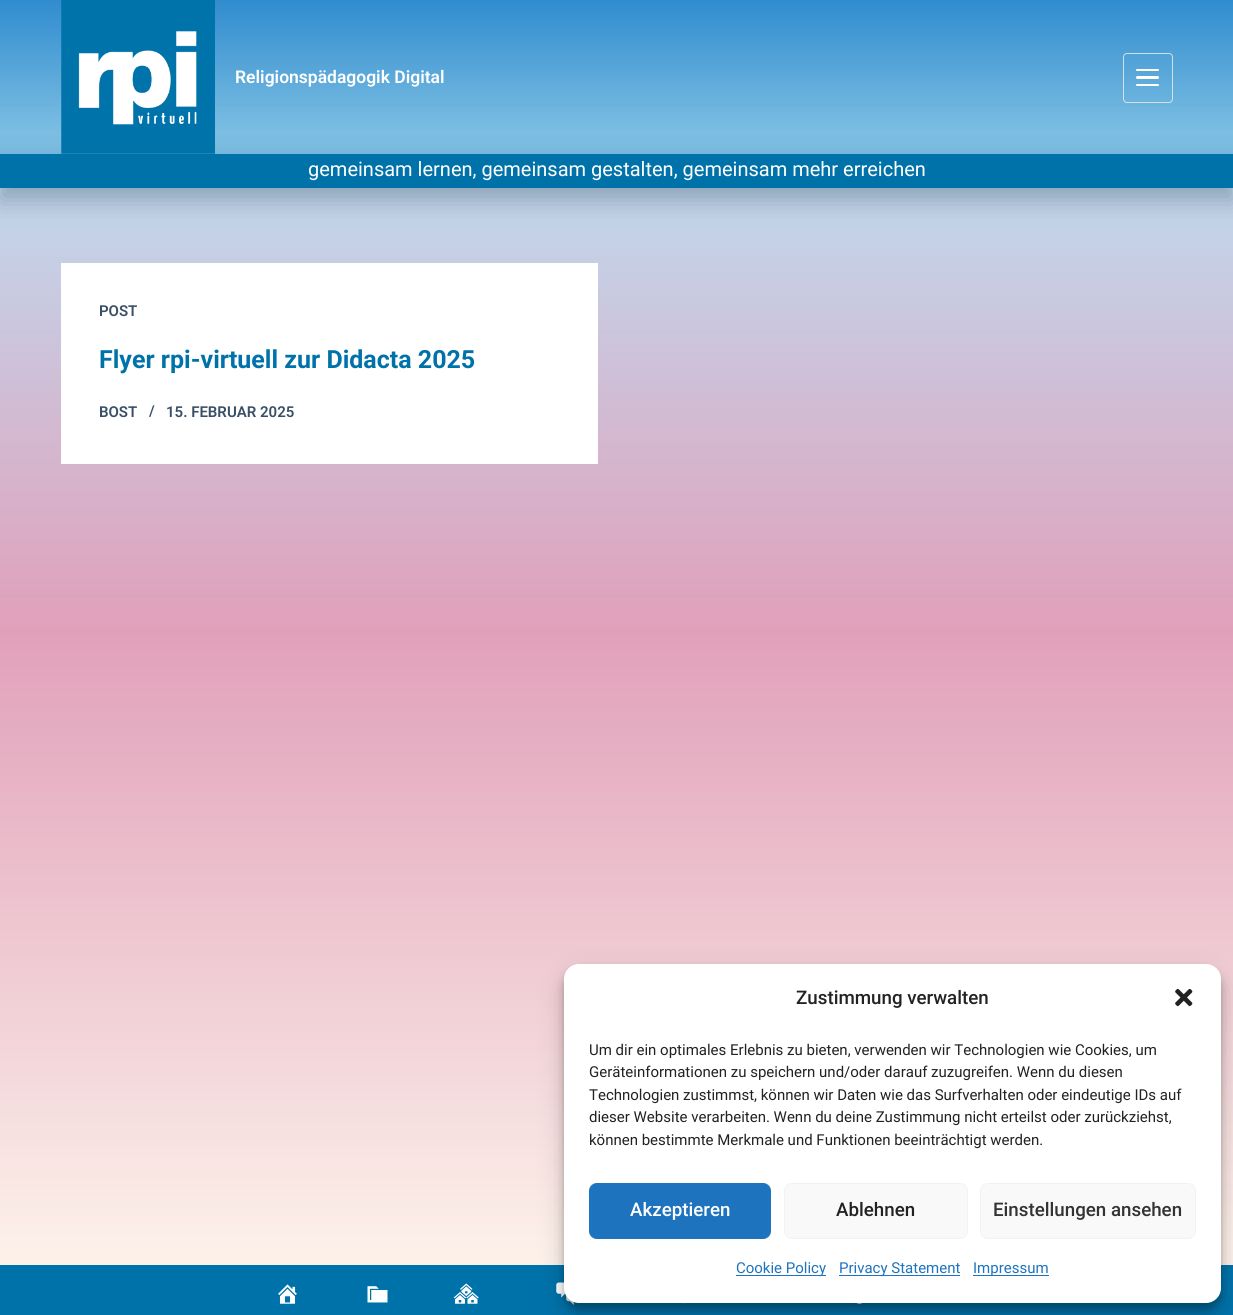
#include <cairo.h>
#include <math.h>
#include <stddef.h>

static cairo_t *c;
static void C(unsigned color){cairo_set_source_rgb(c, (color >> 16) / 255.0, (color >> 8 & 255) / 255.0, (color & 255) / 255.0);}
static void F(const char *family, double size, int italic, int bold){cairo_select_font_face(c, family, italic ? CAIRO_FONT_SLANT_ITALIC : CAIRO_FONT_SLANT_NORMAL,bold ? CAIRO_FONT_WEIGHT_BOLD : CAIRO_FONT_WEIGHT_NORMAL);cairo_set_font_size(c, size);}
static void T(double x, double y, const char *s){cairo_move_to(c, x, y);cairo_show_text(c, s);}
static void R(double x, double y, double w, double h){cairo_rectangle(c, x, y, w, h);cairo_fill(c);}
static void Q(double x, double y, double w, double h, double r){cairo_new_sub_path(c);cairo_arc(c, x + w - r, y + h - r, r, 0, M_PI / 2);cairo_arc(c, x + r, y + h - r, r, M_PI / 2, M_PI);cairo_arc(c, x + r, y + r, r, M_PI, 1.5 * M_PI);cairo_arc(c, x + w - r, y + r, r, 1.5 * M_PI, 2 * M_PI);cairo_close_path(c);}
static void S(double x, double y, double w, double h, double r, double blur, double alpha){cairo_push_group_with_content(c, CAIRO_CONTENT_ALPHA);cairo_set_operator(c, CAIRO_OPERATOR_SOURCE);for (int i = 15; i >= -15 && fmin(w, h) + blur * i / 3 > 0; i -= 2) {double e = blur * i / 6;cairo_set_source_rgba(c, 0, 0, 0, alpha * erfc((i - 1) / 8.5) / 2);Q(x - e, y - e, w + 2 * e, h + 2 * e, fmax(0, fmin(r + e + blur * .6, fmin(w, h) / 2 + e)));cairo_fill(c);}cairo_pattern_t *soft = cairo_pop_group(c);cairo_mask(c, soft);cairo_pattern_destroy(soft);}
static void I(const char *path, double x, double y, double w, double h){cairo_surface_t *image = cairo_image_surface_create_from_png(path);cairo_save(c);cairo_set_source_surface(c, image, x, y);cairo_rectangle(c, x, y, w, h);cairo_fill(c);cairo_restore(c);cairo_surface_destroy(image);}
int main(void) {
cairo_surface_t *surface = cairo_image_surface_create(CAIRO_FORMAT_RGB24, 1233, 1315);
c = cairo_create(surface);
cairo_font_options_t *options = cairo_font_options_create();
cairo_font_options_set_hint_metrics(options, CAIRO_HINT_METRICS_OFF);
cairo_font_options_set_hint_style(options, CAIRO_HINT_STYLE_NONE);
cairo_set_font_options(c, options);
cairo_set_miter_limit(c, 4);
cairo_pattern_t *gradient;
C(0xffffff);
cairo_paint(c);
gradient = cairo_pattern_create_linear(617,1315,617,0);
cairo_pattern_add_color_stop_rgba(gradient,0,1,0.973,0.933,1);
cairo_pattern_add_color_stop_rgba(gradient,.52,0.882,0.627,0.729,1);
cairo_pattern_add_color_stop_rgba(gradient,.9,0.741,0.871,0.953,1);
cairo_pattern_add_color_stop_rgba(gradient,1,0.29,0.573,0.835,1);
cairo_set_source(c,gradient);
cairo_pattern_destroy(gradient);
R(0,0,1233,1265);
C(0x2b3d4f);
S(0,166,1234,34,0,12.5,.35);
cairo_set_source_rgba(c,0,0.51,0.765,0.35);
R(0,0,1233,154);
I("1.png",61,0,154,154);
F("Roboto SemiBold",17.5,0,0);
C(0xffffff);
T(235,83,"Religionspädagogik Digital");
Q(1123.5,53.5,49,49,3.5);
cairo_set_source_rgba(c,0.878,0.898,0.922,0.9);
cairo_set_line_width(c,1);
cairo_stroke(c);
C(0xffffff);
Q(1136,69,23,2,1);
cairo_fill(c);
Q(1136,76,23,3,1.5);
cairo_fill(c);
Q(1136,84,23,2,1);
cairo_fill(c);
C(0x0072aa);
R(0,154,1233,34);
F("Roboto",20,0,0);
C(0xffffff);
T(308,176,"gemeinsam lernen, gemeinsam gestalten, gemeinsam mehr erreichen");
R(61,263,537,201);
F("Roboto SemiBold",15,0,0);
C(0x3a4f66);
T(99,316,"POST");
F("Roboto",25,0,1);
C(0x0072aa);
T(99,368,"Flyer rpi-virtuell zur Didacta 2025");
F("Roboto SemiBold",15,0,0);
C(0x3a4f66);
T(99,417,"BOST");
T(149,416,"/");
T(166,417,"15. FEBRUAR 2025");
C(0x0072aa);
R(0,1265,1233,50);
I("6.png",556,1282,18,23);
I("7.png",683,1303,2,1);
I("8.png",857,1303,5,1);
C(0x000000);
S(564,971,657,339,15,4,.23);
S(564,976,657,339,15,12.5,.19);
C(0xffffff);
Q(564,964,657,339,15);
cairo_fill(c);
F("Roboto Medium",18.75,0,0);
C(0x222222);
T(796,1004,"Zustimmung verwalten");
I("2.png",1175,988,18,19);
F("Roboto",15,0,0);
T(589,1055,"Um dir ein optimales Erlebnis zu bieten, verwenden wir Technologien wie Cookies, um");
T(589,1077,"Geräteinformationen zu speichern und/oder darauf zuzugreifen. Wenn du diesen");
T(589,1100,"Technologien zustimmst, können wir Daten wie das Surfverhalten oder eindeutige IDs auf");
T(589,1122,"dieser Website verarbeiten. Wenn du deine Zustimmung nicht erteilst oder zurückziehst,");
T(589,1145,"können bestimmte Merkmale und Funktionen beeinträchtigt werden.");
C(0x1e73be);
Q(589.5,1183.5,181,55,7.5);
cairo_fill_preserve(c);
cairo_stroke(c);
F("Roboto Medium",18.75,0,0);
C(0xffffff);
T(630,1216,"Akzeptieren");
C(0xf9f9f9);
Q(784.5,1183.5,183,55,7.5);
cairo_fill_preserve(c);
C(0xf2f2f2);
cairo_stroke(c);
C(0x222222);
T(836,1216,"Ablehnen");
C(0xf9f9f9);
Q(980.5,1183.5,215,55,7.5);
cairo_fill_preserve(c);
C(0xf2f2f2);
cairo_stroke(c);
C(0x333333);
T(993,1216,"Einstellungen ansehen");
C(0x1e73be);
R(736,1275,90,1);
F("Roboto",15,0,0);
T(736,1273,"Cookie Policy");
R(839,1275,121,1);
T(839,1273,"Privacy Statement");
R(973,1275,76,1);
T(973,1273,"Impressum");
I("3.png",278,1284,19,20);
I("4.png",367,1286,21,17);
I("5.png",453,1283,26,21);
cairo_surface_write_to_png(surface, "o.png");
cairo_font_options_destroy(options);
cairo_destroy(c);
cairo_surface_destroy(surface);
return 0;
}
